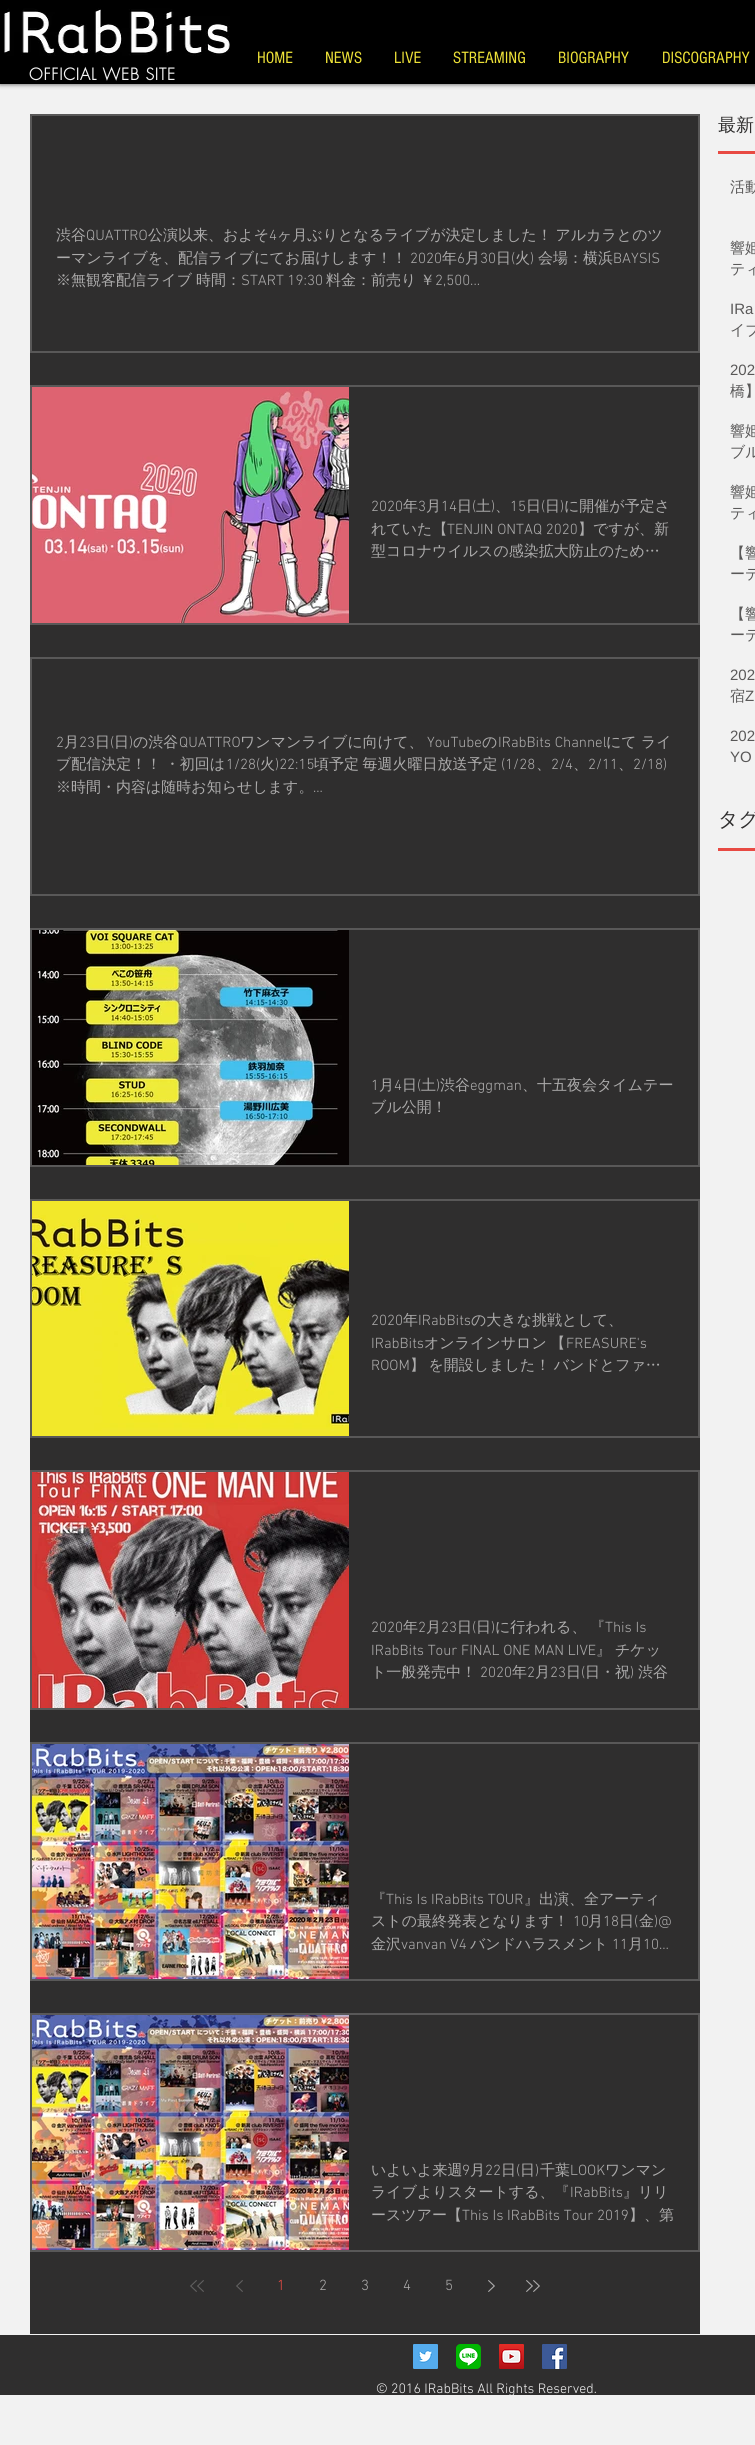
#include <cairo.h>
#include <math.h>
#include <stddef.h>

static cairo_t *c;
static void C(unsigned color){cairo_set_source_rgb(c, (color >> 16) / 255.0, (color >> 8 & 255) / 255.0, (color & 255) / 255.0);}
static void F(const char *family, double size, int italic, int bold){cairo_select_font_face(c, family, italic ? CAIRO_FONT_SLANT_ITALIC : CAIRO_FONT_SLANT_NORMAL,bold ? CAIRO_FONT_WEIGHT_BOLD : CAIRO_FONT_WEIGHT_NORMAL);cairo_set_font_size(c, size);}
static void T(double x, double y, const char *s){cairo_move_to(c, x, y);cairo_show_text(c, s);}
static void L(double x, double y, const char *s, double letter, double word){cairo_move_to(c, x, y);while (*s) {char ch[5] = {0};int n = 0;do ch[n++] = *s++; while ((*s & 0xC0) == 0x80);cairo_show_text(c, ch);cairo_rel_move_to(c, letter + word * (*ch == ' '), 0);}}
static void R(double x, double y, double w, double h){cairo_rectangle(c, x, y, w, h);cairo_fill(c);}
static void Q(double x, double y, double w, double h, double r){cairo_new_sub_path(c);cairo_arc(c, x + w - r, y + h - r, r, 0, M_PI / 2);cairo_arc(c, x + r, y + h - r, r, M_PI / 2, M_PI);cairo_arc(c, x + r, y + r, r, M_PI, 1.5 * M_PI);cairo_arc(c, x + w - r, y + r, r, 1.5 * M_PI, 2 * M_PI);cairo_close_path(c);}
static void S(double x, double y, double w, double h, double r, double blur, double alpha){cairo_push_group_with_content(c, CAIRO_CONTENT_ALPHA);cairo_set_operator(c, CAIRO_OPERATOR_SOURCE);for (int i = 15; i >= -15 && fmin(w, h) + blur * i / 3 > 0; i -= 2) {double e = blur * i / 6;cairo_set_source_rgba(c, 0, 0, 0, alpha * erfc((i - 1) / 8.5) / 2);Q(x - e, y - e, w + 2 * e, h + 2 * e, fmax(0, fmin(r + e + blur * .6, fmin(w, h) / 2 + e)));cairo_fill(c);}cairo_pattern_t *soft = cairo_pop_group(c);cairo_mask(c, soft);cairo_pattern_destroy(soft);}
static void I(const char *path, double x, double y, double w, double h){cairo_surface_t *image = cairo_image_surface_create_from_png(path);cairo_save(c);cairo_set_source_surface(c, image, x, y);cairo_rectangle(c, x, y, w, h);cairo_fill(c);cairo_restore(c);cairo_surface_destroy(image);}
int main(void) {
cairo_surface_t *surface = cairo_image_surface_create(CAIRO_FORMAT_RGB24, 755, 2445);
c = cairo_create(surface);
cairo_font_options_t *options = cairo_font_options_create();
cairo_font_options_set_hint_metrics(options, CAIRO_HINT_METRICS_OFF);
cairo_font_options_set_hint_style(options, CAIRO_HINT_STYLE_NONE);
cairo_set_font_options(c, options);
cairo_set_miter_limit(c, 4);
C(0xf2f2f2);
cairo_paint(c);
C(0x000000);
S(0,0,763,84,0,2.5,.7);
C(0x000000);
R(0,0,755,84);
I("1.png",4,8,226,48);
F("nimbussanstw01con",17,0,0);
C(0xede138);
T(257,63,"HOME");
T(325,63,"NEWS");
T(394,63,"LIVE");
T(453,63,"STREAMING");
T(558,63,"BIOGRAPHY");
T(662,63,"DISCOGRAPHY");
F("futura",16,0,1);
C(0xf2f2f2);
L(29,80,"OFFICIAL WEB SITE",.75,0);
F("WenQuanYi Zen Hei Medium",18,0,0);
C(0x2f2e2e);
T(718,131,"最新");
C(0xe84a43);
R(718,151,37,3);
C(0x2f2e2e);
R(30,116,670,2218);
cairo_rectangle(c,31,115,668,237);
C(0x595858);
cairo_stroke(c);
F("WenQuanYi Zen Hei Medium",15,0,0);
C(0xacabab);
T(56,240,"渋谷");
F("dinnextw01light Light",15,0,0);
T(86,240,"QUATTRO");
F("WenQuanYi Zen Hei Medium",15,0,0);
T(148,240,"公演以来、およそ");
F("dinnextw01light Light",15,0,0);
T(269,240,"4");
F("WenQuanYi Zen Hei Medium",15,0,0);
L(277,240,"ヶ月ぶりとなるライブが決定しました！ アルカラとのツ",0,-1);
T(56,263,"ーマンライブを、配信ライブにてお届けします！！");
F("dinnextw01light Light",15,0,0);
T(410,263,"2020");
F("WenQuanYi Zen Hei Medium",15,0,0);
T(442,263,"年");
F("dinnextw01light Light",15,0,0);
T(457,263,"6");
F("WenQuanYi Zen Hei Medium",15,0,0);
T(465,263,"月");
F("dinnextw01light Light",15,0,0);
T(480,263,"30");
F("WenQuanYi Zen Hei Medium",15,0,0);
T(496,263,"日");
F("dinnextw01light Light",15,0,0);
T(511,263,"(");
F("WenQuanYi Zen Hei Medium",15,0,0);
T(515,263,"火");
F("dinnextw01light Light",15,0,0);
T(530,263,")");
F("WenQuanYi Zen Hei Medium",15,0,0);
T(538,263,"会場：横浜");
F("dinnextw01light Light",15,0,0);
T(613,263,"BAYSIS");
F("WenQuanYi Zen Hei Medium",15,0,0);
T(56,285,"※無観客配信ライブ");
T(196,285,"時間：");
F("dinnextw01light Light",15,0,0);
T(241,285,"START 19:30");
F("WenQuanYi Zen Hei Medium",15,0,0);
T(326,285,"料金：前売り");
T(420,285,"￥");
F("dinnextw01light Light",15,0,0);
T(435,285,"2,500...");
cairo_rectangle(c,31,386,668,238);
C(0x595858);
cairo_stroke(c);
I("2.png",32,387,317,236);
C(0xacabab);
T(371,511,"2020");
F("WenQuanYi Zen Hei Medium",15,0,0);
T(403,511,"年");
F("dinnextw01light Light",15,0,0);
T(418,511,"3");
F("WenQuanYi Zen Hei Medium",15,0,0);
T(426,511,"月");
F("dinnextw01light Light",15,0,0);
T(441,511,"14");
F("WenQuanYi Zen Hei Medium",15,0,0);
T(457,511,"日");
F("dinnextw01light Light",15,0,0);
T(472,511,"(");
F("WenQuanYi Zen Hei Medium",15,0,0);
T(476,511,"土");
F("dinnextw01light Light",15,0,0);
T(491,511,")");
F("WenQuanYi Zen Hei Medium",15,0,0);
T(495,511,"、");
F("dinnextw01light Light",15,0,0);
T(510,511,"15");
F("WenQuanYi Zen Hei Medium",15,0,0);
T(526,511,"日");
F("dinnextw01light Light",15,0,0);
T(541,511,"(");
F("WenQuanYi Zen Hei Medium",15,0,0);
T(545,511,"日");
F("dinnextw01light Light",15,0,0);
T(560,511,")");
F("WenQuanYi Zen Hei Medium",15,0,0);
T(564,511,"に開催が予定さ");
T(371,534,"れていた【");
F("dinnextw01light Light",15,0,0);
T(447,534,"TENJIN ONTAQ 2020");
F("WenQuanYi Zen Hei Medium",15,0,0);
T(578,534,"】ですが、新");
T(371,556,"型コロナウイルスの感染拡大防止のため…");
cairo_rectangle(c,31,658,668,237);
C(0x595858);
cairo_stroke(c);
F("dinnextw01light Light",15,0,0);
C(0xacabab);
T(56,747,"2");
F("WenQuanYi Zen Hei Medium",15,0,0);
T(64,747,"月");
F("dinnextw01light Light",15,0,0);
T(79,747,"23");
F("WenQuanYi Zen Hei Medium",15,0,0);
T(95,747,"日");
F("dinnextw01light Light",15,0,0);
T(110,747,"(");
F("WenQuanYi Zen Hei Medium",15,0,0);
T(114,747,"日");
F("dinnextw01light Light",15,0,0);
T(129,747,")");
F("WenQuanYi Zen Hei Medium",15,0,0);
T(133,747,"の渋谷");
F("dinnextw01light Light",15,0,0);
T(179,747,"QUATTRO");
F("WenQuanYi Zen Hei Medium",15,0,0);
T(240,747,"ワンマンライブに向けて、");
F("dinnextw01light Light",15,0,0);
T(427,747,"YouTube");
F("WenQuanYi Zen Hei Medium",15,0,0);
T(482,747,"の");
F("dinnextw01light Light",15,0,0);
T(498,747,"IRabBits Channel");
F("WenQuanYi Zen Hei Medium",15,0,0);
T(606,747,"にて");
T(641,747,"ライ");
L(56,769,"ブ配信決定！！ ・初回は",0,-1);
F("dinnextw01light Light",15,0,0);
T(226,769,"1/28(");
F("WenQuanYi Zen Hei Medium",15,0,0);
T(260,769,"火");
F("dinnextw01light Light",15,0,0);
T(275,769,")22:15");
F("WenQuanYi Zen Hei Medium",15,0,0);
L(314,769,"頃予定 毎週火曜日放送予定",0,-1);
F("dinnextw01light Light",15,0,0);
T(501,769,"(1/28");
F("WenQuanYi Zen Hei Medium",15,0,0);
T(536,769,"、");
F("dinnextw01light Light",15,0,0);
T(551,769,"2/4");
F("WenQuanYi Zen Hei Medium",15,0,0);
T(573,769,"、");
F("dinnextw01light Light",15,0,0);
T(588,769,"2/11");
F("WenQuanYi Zen Hei Medium",15,0,0);
T(618,769,"、");
F("dinnextw01light Light",15,0,0);
T(633,769,"2/18)");
F("WenQuanYi Zen Hei Medium",15,0,0);
T(56,792,"※時間・内容は随時お知らせします。");
F("dinnextw01light Light",15,0,0);
T(313,792,"...");
cairo_rectangle(c,31,929,668,237);
C(0x595858);
cairo_stroke(c);
I("3.png",32,930,317,235);
C(0xacabab);
T(371,1090,"1");
F("WenQuanYi Zen Hei Medium",15,0,0);
T(379,1090,"月");
F("dinnextw01light Light",15,0,0);
T(394,1090,"4");
F("WenQuanYi Zen Hei Medium",15,0,0);
T(402,1090,"日");
F("dinnextw01light Light",15,0,0);
T(417,1090,"(");
F("WenQuanYi Zen Hei Medium",15,0,0);
T(421,1090,"土");
F("dinnextw01light Light",15,0,0);
T(436,1090,")");
F("WenQuanYi Zen Hei Medium",15,0,0);
T(440,1090,"渋谷");
F("dinnextw01light Light",15,0,0);
T(470,1090,"eggman");
F("WenQuanYi Zen Hei Medium",15,0,0);
T(522,1090,"、十五夜会タイムテー");
T(371,1112,"ブル公開！");
cairo_rectangle(c,31,1200,668,237);
C(0x595858);
cairo_stroke(c);
I("4.png",32,1201,317,235);
F("dinnextw01light Light",15,0,0);
C(0xacabab);
T(371,1325,"2020");
F("WenQuanYi Zen Hei Medium",15,0,0);
T(403,1325,"年");
F("dinnextw01light Light",15,0,0);
T(418,1325,"IRabBits");
F("WenQuanYi Zen Hei Medium",15,0,0);
T(471,1325,"の大きな挑戦として、");
F("dinnextw01light Light",15,0,0);
T(371,1348,"IRabBits");
F("WenQuanYi Zen Hei Medium",15,0,0);
L(424,1348,"オンラインサロン 【",0,-1);
F("dinnextw01light Light",15,0,0);
T(566,1348,"FREASURE's");
T(371,1370,"ROOM");
F("WenQuanYi Zen Hei Medium",15,0,0);
L(410,1370,"】 を開設しました！ バンドとファ…",0,-1);
cairo_rectangle(c,31,1471,668,238);
C(0x595858);
cairo_stroke(c);
I("5.png",32,1472,317,236);
F("dinnextw01light Light",15,0,0);
C(0xacabab);
T(371,1632,"2020");
F("WenQuanYi Zen Hei Medium",15,0,0);
T(403,1632,"年");
F("dinnextw01light Light",15,0,0);
T(418,1632,"2");
F("WenQuanYi Zen Hei Medium",15,0,0);
T(426,1632,"月");
F("dinnextw01light Light",15,0,0);
T(441,1632,"23");
F("WenQuanYi Zen Hei Medium",15,0,0);
T(457,1632,"日");
F("dinnextw01light Light",15,0,0);
T(472,1632,"(");
F("WenQuanYi Zen Hei Medium",15,0,0);
T(476,1632,"日");
F("dinnextw01light Light",15,0,0);
T(491,1632,")");
F("WenQuanYi Zen Hei Medium",15,0,0);
T(495,1632,"に行われる、");
T(590,1632,"『");
F("dinnextw01light Light",15,0,0);
T(605,1632,"This Is");
T(371,1655,"IRabBits Tour FINAL ONE MAN LIVE");
F("WenQuanYi Zen Hei Medium",15,0,0);
T(596,1655,"』");
T(615,1655,"チケッ");
T(371,1677,"ト一般発売中！");
F("dinnextw01light Light",15,0,0);
T(480,1677,"2020");
F("WenQuanYi Zen Hei Medium",15,0,0);
T(512,1677,"年");
F("dinnextw01light Light",15,0,0);
T(527,1677,"2");
F("WenQuanYi Zen Hei Medium",15,0,0);
T(535,1677,"月");
F("dinnextw01light Light",15,0,0);
T(550,1677,"23");
F("WenQuanYi Zen Hei Medium",15,0,0);
T(566,1677,"日");
F("dinnextw01light Light",15,0,0);
T(581,1677,"(");
F("WenQuanYi Zen Hei Medium",15,0,0);
T(585,1677,"日・祝");
F("dinnextw01light Light",15,0,0);
T(630,1677,")");
F("WenQuanYi Zen Hei Medium",15,0,0);
T(638,1677,"渋谷");
cairo_rectangle(c,31,1743,668,237);
C(0x595858);
cairo_stroke(c);
I("6.png",32,1744,317,235);
C(0xacabab);
T(371,1904,"『");
F("dinnextw01light Light",15,0,0);
T(386,1904,"This Is IRabBits TOUR");
F("WenQuanYi Zen Hei Medium",15,0,0);
T(524,1904,"』出演、全アーティ");
T(371,1926,"ストの最終発表となります！");
F("dinnextw01light Light",15,0,0);
T(573,1926,"10");
F("WenQuanYi Zen Hei Medium",15,0,0);
T(588,1926,"月");
F("dinnextw01light Light",15,0,0);
T(603,1926,"18");
F("WenQuanYi Zen Hei Medium",15,0,0);
T(619,1926,"日");
F("dinnextw01light Light",15,0,0);
T(634,1926,"(");
F("WenQuanYi Zen Hei Medium",15,0,0);
T(639,1926,"金");
F("dinnextw01light Light",15,0,0);
T(654,1926,")@");
F("WenQuanYi Zen Hei Medium",15,0,0);
T(371,1949,"金沢");
F("dinnextw01light Light",15,0,0);
T(401,1949,"vanvan V4");
F("WenQuanYi Zen Hei Medium",15,0,0);
T(470,1949,"バンドハラスメント");
F("dinnextw01light Light",15,0,0);
T(612,1949,"11");
F("WenQuanYi Zen Hei Medium",15,0,0);
T(628,1949,"月");
F("dinnextw01light Light",15,0,0);
T(643,1949,"10…");
cairo_rectangle(c,31,2014,668,237);
C(0x595858);
cairo_stroke(c);
I("7.png",32,2015,317,235);
F("WenQuanYi Zen Hei Medium",15,0,0);
C(0xacabab);
T(371,2175,"いよいよ来週");
F("dinnextw01light Light",15,0,0);
T(462,2175,"9");
F("WenQuanYi Zen Hei Medium",15,0,0);
T(470,2175,"月");
F("dinnextw01light Light",15,0,0);
T(485,2175,"22");
F("WenQuanYi Zen Hei Medium",15,0,0);
T(501,2175,"日");
F("dinnextw01light Light",15,0,0);
T(516,2175,"(");
F("WenQuanYi Zen Hei Medium",15,0,0);
T(520,2175,"日");
F("dinnextw01light Light",15,0,0);
T(535,2175,")");
F("WenQuanYi Zen Hei Medium",15,0,0);
T(540,2175,"千葉");
F("dinnextw01light Light",15,0,0);
T(570,2175,"LOOK");
F("WenQuanYi Zen Hei Medium",15,0,0);
T(605,2175,"ワンマン");
T(371,2197,"ライブよりスタートする、『");
F("dinnextw01light Light",15,0,0);
T(570,2197,"IRabBits");
F("WenQuanYi Zen Hei Medium",15,0,0);
T(623,2197,"』リリ");
T(371,2220,"ースツアー【");
F("dinnextw01light Light",15,0,0);
T(462,2220,"This Is IRabBits Tour 2019");
F("WenQuanYi Zen Hei Medium",15,0,0);
T(629,2220,"】、第");
I("8.png",190,2280,7,12);
I("8.png",197,2280,7,12);
I("8.png",236,2280,7,12);
F("dinnextw01light Light",15,0,0);
C(0xe84a43);
T(277,2290,"1");
C(0xacabab);
T(319,2290,"2");
T(361,2290,"3");
T(403,2290,"4");
T(445,2290,"5");
I("9.png",488,2280,7,12);
I("9.png",526,2280,7,12);
I("9.png",533,2280,7,12);
F("WenQuanYi Zen Hei Medium",15,0,0);
C(0x595858);
T(730,192,"活動");
T(730,253,"響姫");
T(730,274,"ティ");
F("Liberation Sans",15,0,0);
T(730,314,"IRa");
F("WenQuanYi Zen Hei Medium",15,0,0);
T(730,335,"イブ");
F("Liberation Sans",15,0,0);
T(730,375,"202");
F("WenQuanYi Zen Hei Medium",15,0,0);
T(730,396,"橋】");
T(730,436,"響姫");
T(730,457,"ブル");
T(730,497,"響姫");
T(730,518,"ティ");
T(730,558,"【響");
T(730,579,"ーテ");
T(730,619,"【響");
T(730,640,"ーテ");
F("Liberation Sans",15,0,0);
T(730,680,"202");
F("WenQuanYi Zen Hei Medium",15,0,0);
T(730,701,"宿");
F("Liberation Sans",15,0,0);
T(745,701,"Z");
T(730,741,"202");
T(730,762,"YO");
F("WenQuanYi Zen Hei Medium",20,0,0);
C(0x2f2e2e);
T(718,826,"タグ");
C(0xe84a43);
R(718,848,37,3);
C(0x2f2e2e);
R(0,2335,755,60);
I("10.png",413,2344,25,25);
I("11.png",456,2344,25,25);
I("12.png",499,2344,25,25);
I("13.png",542,2344,25,25);
F("dinnextw01light Light",14,0,0);
C(0xf2f2f2);
T(376,2393,"© 2016 IRabBits All Rights Reserved.");
cairo_surface_write_to_png(surface, "o.png");
cairo_font_options_destroy(options);
cairo_destroy(c);
cairo_surface_destroy(surface);
return 0;
}
